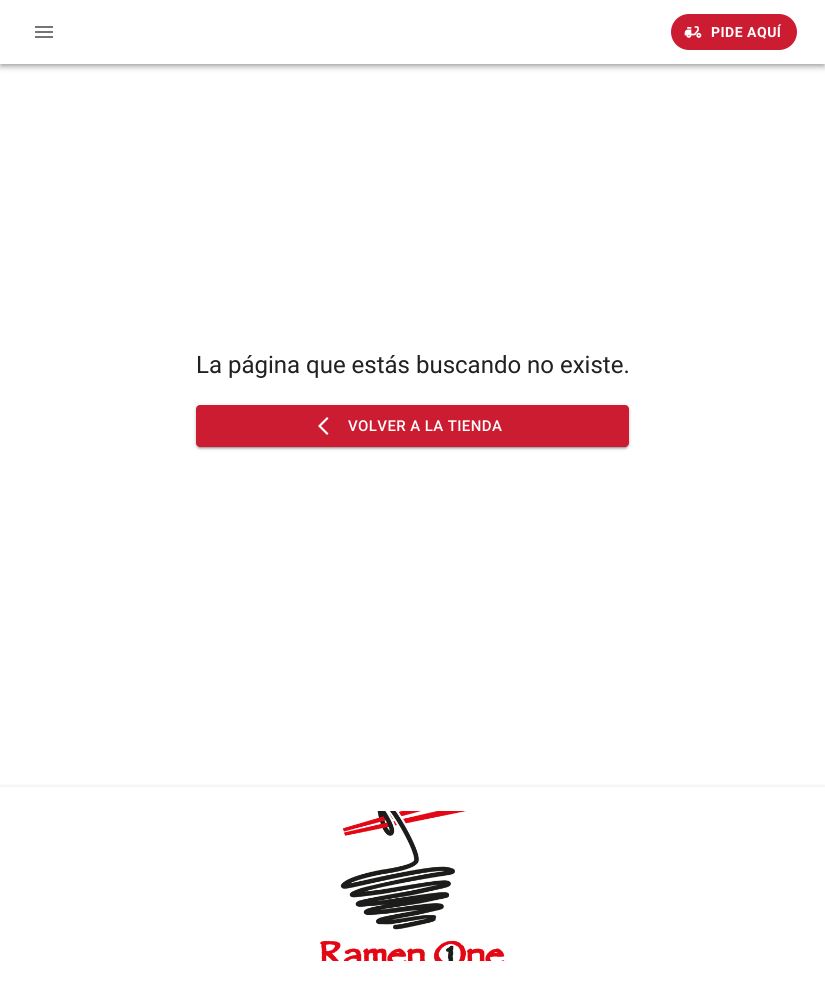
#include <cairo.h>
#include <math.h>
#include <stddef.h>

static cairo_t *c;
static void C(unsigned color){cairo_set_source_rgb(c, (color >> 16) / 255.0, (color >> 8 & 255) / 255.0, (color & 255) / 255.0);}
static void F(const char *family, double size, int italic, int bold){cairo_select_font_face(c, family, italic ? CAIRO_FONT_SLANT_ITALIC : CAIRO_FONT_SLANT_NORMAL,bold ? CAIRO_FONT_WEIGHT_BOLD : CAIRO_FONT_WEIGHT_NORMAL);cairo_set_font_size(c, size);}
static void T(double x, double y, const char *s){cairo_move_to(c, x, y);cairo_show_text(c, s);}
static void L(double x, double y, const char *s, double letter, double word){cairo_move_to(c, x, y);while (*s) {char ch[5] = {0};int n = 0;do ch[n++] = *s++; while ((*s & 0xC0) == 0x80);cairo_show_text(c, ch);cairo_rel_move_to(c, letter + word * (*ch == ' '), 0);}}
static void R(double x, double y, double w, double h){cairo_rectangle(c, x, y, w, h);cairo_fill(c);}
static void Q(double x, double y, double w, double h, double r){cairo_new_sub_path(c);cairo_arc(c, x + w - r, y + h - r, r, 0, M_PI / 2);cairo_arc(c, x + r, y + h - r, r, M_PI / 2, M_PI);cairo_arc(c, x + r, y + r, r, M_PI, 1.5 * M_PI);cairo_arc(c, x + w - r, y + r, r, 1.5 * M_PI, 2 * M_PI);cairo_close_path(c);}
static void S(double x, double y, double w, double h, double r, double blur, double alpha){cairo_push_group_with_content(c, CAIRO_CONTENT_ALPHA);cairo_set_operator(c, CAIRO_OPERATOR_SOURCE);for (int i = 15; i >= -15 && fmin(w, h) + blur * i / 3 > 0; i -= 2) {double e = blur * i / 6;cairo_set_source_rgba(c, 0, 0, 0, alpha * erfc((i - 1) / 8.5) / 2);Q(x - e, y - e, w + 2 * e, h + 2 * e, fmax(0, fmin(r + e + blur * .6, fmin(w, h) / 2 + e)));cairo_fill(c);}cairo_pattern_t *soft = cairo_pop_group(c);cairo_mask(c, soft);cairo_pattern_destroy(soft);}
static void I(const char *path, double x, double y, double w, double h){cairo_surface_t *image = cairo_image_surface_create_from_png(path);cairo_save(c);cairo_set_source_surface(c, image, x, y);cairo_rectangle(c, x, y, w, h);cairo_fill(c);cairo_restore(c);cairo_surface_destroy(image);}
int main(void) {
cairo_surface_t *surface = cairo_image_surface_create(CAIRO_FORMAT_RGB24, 825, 999);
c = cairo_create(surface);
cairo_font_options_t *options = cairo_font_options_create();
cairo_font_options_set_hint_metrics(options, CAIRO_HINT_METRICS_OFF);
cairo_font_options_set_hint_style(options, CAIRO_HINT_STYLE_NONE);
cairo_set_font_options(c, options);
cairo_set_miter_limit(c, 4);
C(0xffffff);
cairo_paint(c);
C(0x000000);
S(0,1,825,64,0,5,.12);
S(0,4,825,64,0,2.5,.14);
S(1,3,823,62,0,2,.2);
C(0xffffff);
R(0,0,825,64);
I("1.png",35,26,18,12);
C(0xcc1c31);
Q(671,14,126,36,18);
cairo_fill(c);
I("2.png",684,26,18,12);
F("Roboto",14,0,1);
C(0xffffff);
L(711,37,"PIDE AQUÍ",.5,0);
F("Roboto",24,0,0);
C(0x212121);
T(196,373,"La página que estás buscando no existe.");
C(0x000000);
S(196,406,433,42,4,2.5,.12);
S(196,407,433,42,4,1,.14);
S(198,410,429,38,2,.5,.2);
C(0xcc1c31);
Q(196,405,433,42,4);
cairo_fill(c);
C(0xffffff);
cairo_new_path(c);
cairo_move_to(c,328.5,418.5);
cairo_line_to(c,327,417);
cairo_line_to(c,318,426);
cairo_line_to(c,327,435);
cairo_line_to(c,328.5,433.5);
cairo_line_to(c,321,426);
cairo_close_path(c);
cairo_fill(c);
F("Roboto Medium",15,0,0);
L(348,431,"VOLVER A LA TIENDA",.4,0);
cairo_save(c);
cairo_rectangle(c,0,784,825,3);
cairo_clip(c);
C(0x000000);
S(0,788,825,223,0,4,.12);
cairo_restore(c);
I("3.png",320,811,185,150);
cairo_surface_write_to_png(surface, "o.png");
cairo_font_options_destroy(options);
cairo_destroy(c);
cairo_surface_destroy(surface);
return 0;
}
